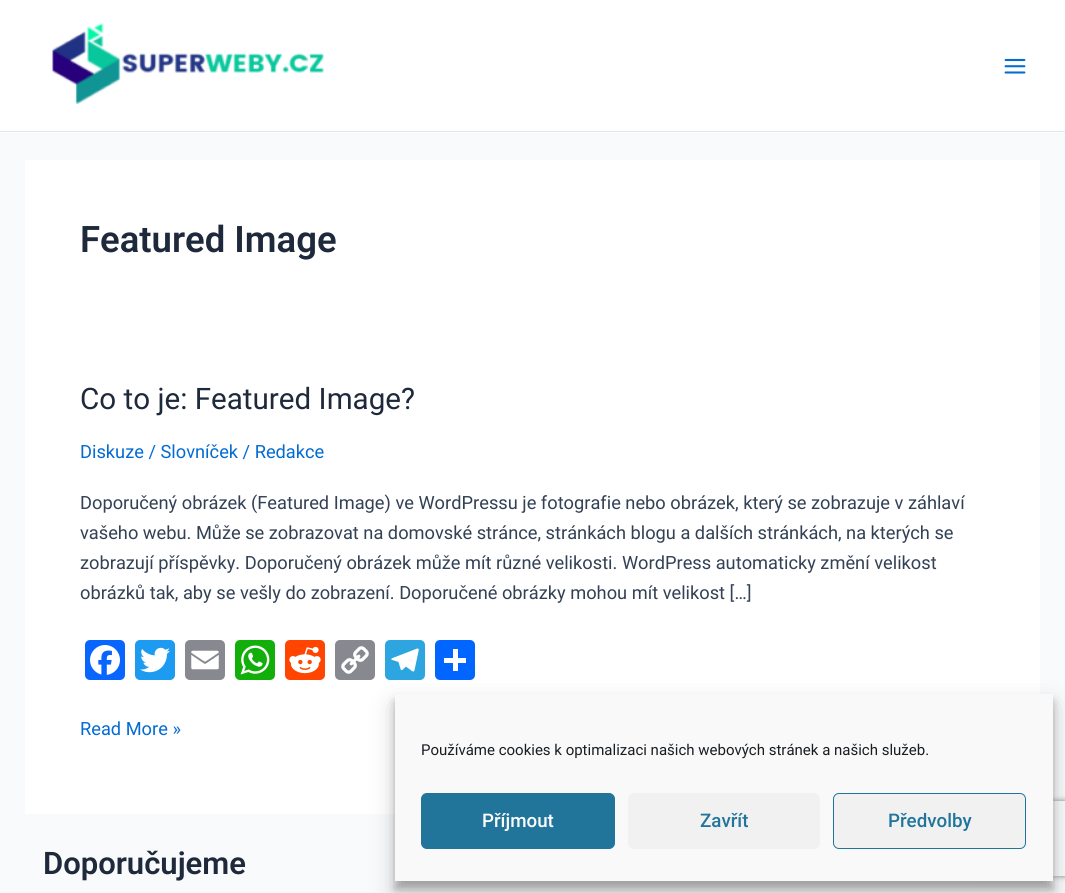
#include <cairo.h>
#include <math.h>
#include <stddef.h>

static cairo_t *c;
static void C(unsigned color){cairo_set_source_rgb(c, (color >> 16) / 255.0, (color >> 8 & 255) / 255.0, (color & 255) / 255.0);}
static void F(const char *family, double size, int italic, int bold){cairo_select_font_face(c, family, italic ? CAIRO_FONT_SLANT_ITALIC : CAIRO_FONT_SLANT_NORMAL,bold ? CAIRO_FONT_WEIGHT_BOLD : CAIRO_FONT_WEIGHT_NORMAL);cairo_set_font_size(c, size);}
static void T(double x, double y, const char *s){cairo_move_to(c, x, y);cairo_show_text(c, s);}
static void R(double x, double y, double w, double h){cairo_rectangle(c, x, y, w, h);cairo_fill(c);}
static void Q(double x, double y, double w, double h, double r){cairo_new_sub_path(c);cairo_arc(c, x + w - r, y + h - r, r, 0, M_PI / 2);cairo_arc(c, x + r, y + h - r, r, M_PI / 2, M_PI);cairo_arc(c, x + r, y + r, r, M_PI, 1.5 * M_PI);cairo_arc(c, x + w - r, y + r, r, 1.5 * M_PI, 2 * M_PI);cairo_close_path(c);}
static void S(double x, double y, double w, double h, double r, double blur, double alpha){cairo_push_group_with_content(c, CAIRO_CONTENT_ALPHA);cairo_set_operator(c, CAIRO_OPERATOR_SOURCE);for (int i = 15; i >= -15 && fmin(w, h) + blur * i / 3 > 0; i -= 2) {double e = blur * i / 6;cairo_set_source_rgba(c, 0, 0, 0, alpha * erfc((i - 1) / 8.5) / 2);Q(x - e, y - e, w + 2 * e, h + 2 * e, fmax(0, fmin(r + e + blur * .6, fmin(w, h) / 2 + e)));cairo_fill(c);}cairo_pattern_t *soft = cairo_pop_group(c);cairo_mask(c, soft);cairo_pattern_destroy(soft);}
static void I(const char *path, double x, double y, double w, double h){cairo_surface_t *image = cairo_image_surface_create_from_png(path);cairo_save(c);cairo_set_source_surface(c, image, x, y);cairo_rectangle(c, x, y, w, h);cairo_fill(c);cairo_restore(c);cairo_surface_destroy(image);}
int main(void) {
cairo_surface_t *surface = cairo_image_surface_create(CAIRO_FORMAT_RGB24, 1065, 893);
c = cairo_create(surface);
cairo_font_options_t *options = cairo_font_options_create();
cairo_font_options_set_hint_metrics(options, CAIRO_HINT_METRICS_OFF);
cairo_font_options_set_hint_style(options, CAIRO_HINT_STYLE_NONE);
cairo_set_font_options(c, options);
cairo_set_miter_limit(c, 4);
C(0xf9fafb);
cairo_paint(c);
C(0xffffff);
R(0,0,1065,133);
C(0xe2e8f0);
R(0,131,1065,1);
I("1.png",52,23,272,81);
I("2.png",1004,58,22,16);
C(0xffffff);
R(25,160,1015,654);
F("Roboto SemiBold",36.5,0,0);
C(0x1e293b);
T(80,252,"Featured Image");
F("Roboto",29.6,0,0);
T(80,409,"Co to je: Featured Image?");
F("Roboto",18.25,0,0);
C(0x046bd2);
T(80,458,"Diskuze / Slovníček / Redakce");
C(0x334155);
T(80,509,"Doporučený obrázek (Featured Image) ve WordPressu je fotografie nebo obrázek, který se zobrazuje v záhlaví");
T(80,539,"vašeho webu. Může se zobrazovat na domovské stránce, stránkách blogu a dalších stránkách, na kterých se");
T(80,569,"zobrazují příspěvky. Doporučený obrázek může mít různé velikosti. WordPress automaticky změní velikost");
T(80,599,"obrázků tak, aby se vešly do zobrazení. Doporučené obrázky mohou mít velikost […]");
C(0x0866ff);
Q(85,640,40,40,5);
cairo_fill(c);
I("3.png",90,645,30,30);
C(0x1d9bf0);
Q(135,640,40,40,5);
cairo_fill(c);
I("4.png",140,647,30,26);
C(0x888990);
Q(185,640,40,40,5);
cairo_fill(c);
I("5.png",191,650,28,20);
C(0x12af0a);
Q(235,640,40,40,5);
cairo_fill(c);
I("6.png",240,645,30,30);
C(0xff4500);
Q(285,640,40,40,5);
cairo_fill(c);
I("7.png",289,646,32,28);
C(0x888990);
Q(335,640,40,40,5);
cairo_fill(c);
I("8.png",341,646,28,28);
C(0x2ca5e0);
Q(385,640,40,40,5);
cairo_fill(c);
I("9.png",391,648,28,24);
C(0x0166ff);
Q(435,640,40,40,5);
cairo_fill(c);
C(0xffffff);
R(453,649,5,22);
R(444,658,22,5);
C(0x046bd2);
T(80,735,"Read More »");
F("Roboto SemiBold",31,0,0);
C(0x1e293b);
T(43,874,"Doporučujeme");
C(0x000000);
S(395,701,658,188,0,4,.23);
S(395,706,658,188,0,12.5,.19);
cairo_save(c);
cairo_set_fill_rule(c,CAIRO_FILL_RULE_EVEN_ODD);
cairo_new_path(c);
cairo_move_to(c,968,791);
cairo_line_to(c,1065,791);
cairo_line_to(c,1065,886);
cairo_line_to(c,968,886);
cairo_close_path(c);
cairo_move_to(c,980.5,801);
cairo_line_to(c,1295.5,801);
cairo_curve_to(c,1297,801,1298,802,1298,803.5);
cairo_line_to(c,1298,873.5);
cairo_curve_to(c,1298,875,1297,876,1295.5,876);
cairo_line_to(c,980.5,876);
cairo_curve_to(c,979,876,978,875,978,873.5);
cairo_line_to(c,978,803.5);
cairo_curve_to(c,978,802,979,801,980.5,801);
cairo_close_path(c);
cairo_clip(c);
C(0x808080);
S(978,801,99,75,2.5,3,1);
cairo_restore(c);
C(0xf9f9f9);
R(395,694,658,187);
F("Roboto",15,0,0);
C(0x191e23);
T(421,755,"Používáme cookies k optimalizaci našich webových stránek a našich služeb.");
C(0x21759b);
Q(421.5,793.5,193,55,5.5);
cairo_fill_preserve(c);
cairo_set_line_width(c,1);
cairo_stroke(c);
F("Roboto Medium",18.75,0,0);
C(0xffffff);
T(482,827,"Příjmout");
C(0xf1f1f1);
Q(628,793,192,56,6);
cairo_fill(c);
C(0x21759b);
T(700,827,"Zavřít");
C(0xf1f1f1);
Q(833.5,793.5,192,55,5.5);
cairo_fill_preserve(c);
C(0x21759b);
cairo_stroke(c);
T(888,827,"Předvolby");
cairo_surface_write_to_png(surface, "o.png");
cairo_font_options_destroy(options);
cairo_destroy(c);
cairo_surface_destroy(surface);
return 0;
}
